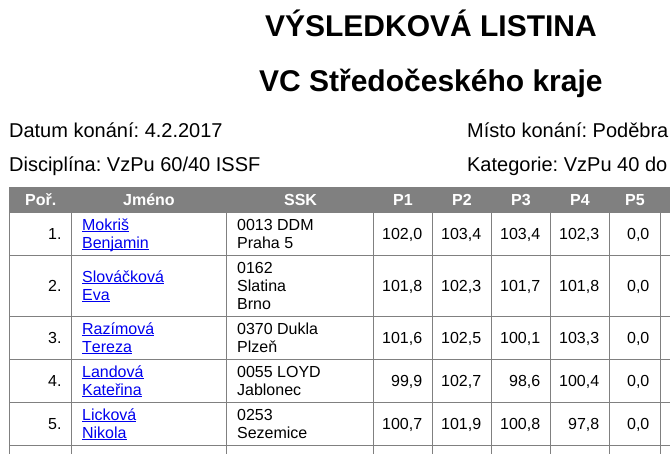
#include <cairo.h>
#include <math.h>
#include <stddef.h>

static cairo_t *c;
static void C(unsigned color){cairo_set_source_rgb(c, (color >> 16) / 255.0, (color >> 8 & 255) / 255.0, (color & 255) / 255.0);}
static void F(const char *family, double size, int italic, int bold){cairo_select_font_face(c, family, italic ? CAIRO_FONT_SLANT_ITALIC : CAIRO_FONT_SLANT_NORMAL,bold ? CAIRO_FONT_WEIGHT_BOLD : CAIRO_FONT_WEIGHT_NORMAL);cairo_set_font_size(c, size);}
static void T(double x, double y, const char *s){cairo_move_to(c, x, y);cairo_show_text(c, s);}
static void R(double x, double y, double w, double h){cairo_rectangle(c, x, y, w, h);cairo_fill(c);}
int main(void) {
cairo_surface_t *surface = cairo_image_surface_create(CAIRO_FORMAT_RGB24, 670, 454);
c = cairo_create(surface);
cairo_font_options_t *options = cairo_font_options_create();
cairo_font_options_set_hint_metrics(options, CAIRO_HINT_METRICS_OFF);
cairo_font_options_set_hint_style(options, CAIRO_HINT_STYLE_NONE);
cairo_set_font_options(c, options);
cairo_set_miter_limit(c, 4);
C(0xffffff);
cairo_paint(c);
F("Liberation Sans",30,0,1);
C(0x000000);
T(265,36,"VÝSLEDKOVÁ LISTINA");
T(259,91,"VC Středočeského kraje");
F("Liberation Sans",20,0,0);
T(9,137,"Datum konání: 4.2.2017");
T(467,137,"Místo konání: Poděbra");
T(9,171,"Disciplína: VzPu 60/40 ISSF");
T(467,171,"Kategorie: VzPu 40 do");
C(0x808080);
R(9,187,661,1);
R(9,187,1,267);
R(10,188,660,25);
F("Liberation Sans",16,0,1);
C(0xffffff);
T(25,205,"Poř.");
T(123,205,"Jméno");
T(284,205,"SSK");
T(393,205,"P1");
T(452,205,"P2");
T(511,205,"P3");
T(570,205,"P4");
T(625,205,"P5");
F("Liberation Sans",16,0,0);
C(0x000000);
T(48,239,"1.");
C(0x808080);
R(660,255,10,1);
R(660,316,10,1);
R(660,359,10,1);
R(660,402,10,1);
R(660,445,10,1);
R(660,445,1,9);
R(609,445,52,1);
R(660,402,1,44);
R(609,402,52,1);
R(660,359,1,44);
R(609,359,52,1);
R(660,316,1,44);
R(609,316,52,1);
R(660,255,1,62);
R(609,255,52,1);
R(609,445,1,9);
R(550,445,60,1);
R(609,402,1,44);
R(550,402,60,1);
R(609,359,1,44);
R(550,359,60,1);
R(609,316,1,44);
R(550,316,60,1);
R(609,255,1,62);
R(550,255,60,1);
R(550,445,1,9);
R(491,445,60,1);
R(550,402,1,44);
R(491,402,60,1);
R(550,359,1,44);
R(491,359,60,1);
R(550,316,1,44);
R(491,316,60,1);
R(550,255,1,62);
R(491,255,60,1);
R(491,445,1,9);
R(432,445,60,1);
R(491,402,1,44);
R(432,402,60,1);
R(491,359,1,44);
R(432,359,60,1);
R(491,316,1,44);
R(432,316,60,1);
R(491,255,1,62);
R(432,255,60,1);
R(432,445,1,9);
R(373,445,60,1);
R(432,402,1,44);
R(373,402,60,1);
R(432,359,1,44);
R(373,359,60,1);
R(432,316,1,44);
R(373,316,60,1);
R(432,255,1,62);
R(373,255,60,1);
R(373,445,1,9);
R(226,445,148,1);
R(373,402,1,44);
R(226,402,148,1);
R(373,359,1,44);
R(226,359,148,1);
R(373,316,1,44);
R(226,316,148,1);
R(373,255,1,62);
R(226,255,148,1);
R(226,445,1,9);
R(71,445,156,1);
R(226,402,1,44);
R(71,402,156,1);
R(226,359,1,44);
R(71,359,156,1);
R(226,316,1,44);
R(71,316,156,1);
R(226,255,1,62);
R(71,255,156,1);
R(71,445,1,9);
R(9,445,63,1);
R(71,402,1,44);
R(9,402,63,1);
R(71,359,1,44);
R(9,359,63,1);
R(71,316,1,44);
R(9,316,63,1);
R(71,255,1,62);
R(9,255,63,1);
R(71,212,1,44);
C(0x0000ee);
T(82,230,"Mokriš");
R(82,231,47,1);
R(82,249,67,1);
T(82,248,"Benjamin");
C(0x808080);
R(226,212,1,44);
C(0x000000);
T(237,230,"0013 DDM");
T(237,248,"Praha 5");
C(0x808080);
R(373,212,1,44);
C(0x000000);
T(382,239,"102,0");
C(0x808080);
R(432,212,1,44);
C(0x000000);
T(441,239,"103,4");
C(0x808080);
R(491,212,1,44);
C(0x000000);
T(500,239,"103,4");
C(0x808080);
R(550,212,1,44);
C(0x000000);
T(559,239,"102,3");
C(0x808080);
R(609,212,1,44);
C(0x000000);
T(627,239,"0,0");
C(0x808080);
R(660,212,1,44);
C(0x000000);
T(48,291,"2.");
C(0x0000ee);
T(82,282,"Slováčková");
R(82,283,82,1);
T(82,300,"Eva");
R(82,301,28,1);
C(0x000000);
T(237,273,"0162");
T(237,291,"Slatina");
T(237,309,"Brno");
T(382,291,"101,8");
T(441,291,"102,3");
T(500,291,"101,7");
T(559,291,"101,8");
T(627,291,"0,0");
T(48,343,"3.");
C(0x0000ee);
T(82,334,"Razímová");
R(82,335,72,1);
T(82,352,"Tereza");
R(82,353,50,1);
C(0x000000);
T(237,334,"0370 Dukla");
T(237,352,"Plzeň");
T(382,343,"101,6");
T(441,343,"102,5");
T(500,343,"100,1");
T(559,343,"103,3");
T(627,343,"0,0");
T(48,386,"4.");
C(0x0000ee);
T(82,377,"Landová");
R(82,378,62,1);
T(82,395,"Kateřina");
R(82,396,60,1);
C(0x000000);
T(237,377,"0055 LOYD");
T(237,395,"Jablonec");
T(391,386,"99,9");
T(441,386,"102,7");
T(509,386,"98,6");
T(559,386,"100,4");
T(627,386,"0,0");
T(48,429,"5.");
C(0x0000ee);
T(82,420,"Licková");
R(82,421,54,1);
T(82,438,"Nikola");
R(82,439,45,1);
C(0x000000);
T(237,420,"0253");
T(237,438,"Sezemice");
T(382,429,"100,7");
T(441,429,"101,9");
T(500,429,"100,8");
T(568,429,"97,8");
T(627,429,"0,0");
cairo_surface_write_to_png(surface, "o.png");
cairo_font_options_destroy(options);
cairo_destroy(c);
cairo_surface_destroy(surface);
return 0;
}
